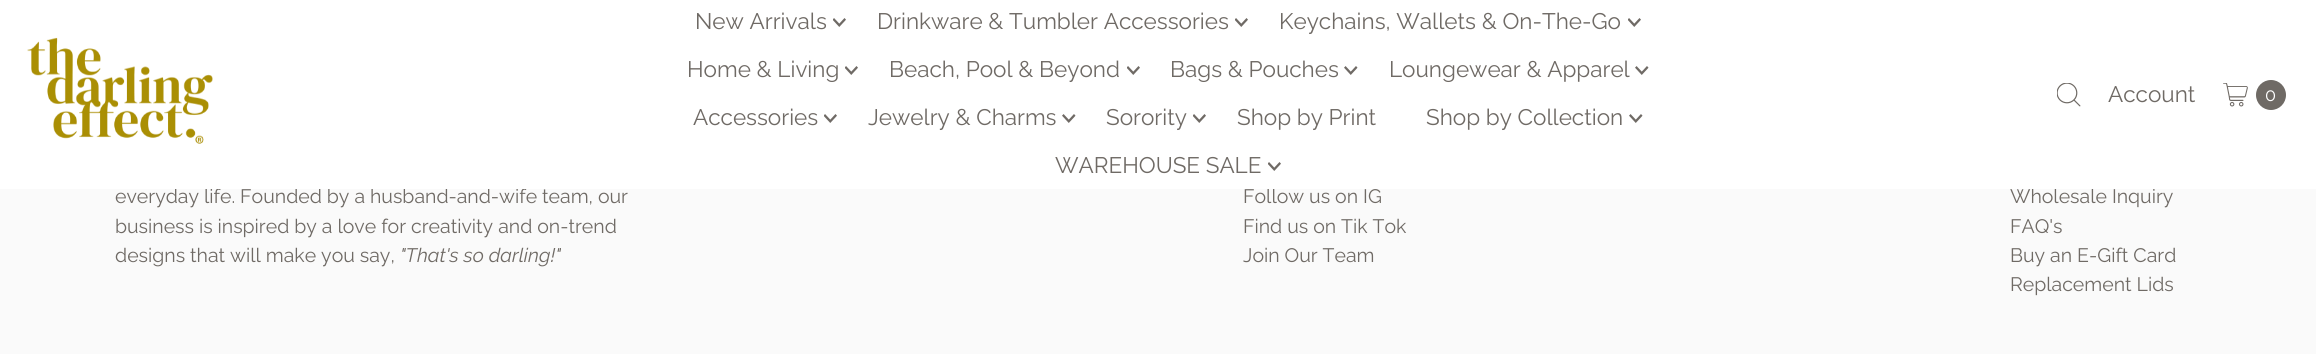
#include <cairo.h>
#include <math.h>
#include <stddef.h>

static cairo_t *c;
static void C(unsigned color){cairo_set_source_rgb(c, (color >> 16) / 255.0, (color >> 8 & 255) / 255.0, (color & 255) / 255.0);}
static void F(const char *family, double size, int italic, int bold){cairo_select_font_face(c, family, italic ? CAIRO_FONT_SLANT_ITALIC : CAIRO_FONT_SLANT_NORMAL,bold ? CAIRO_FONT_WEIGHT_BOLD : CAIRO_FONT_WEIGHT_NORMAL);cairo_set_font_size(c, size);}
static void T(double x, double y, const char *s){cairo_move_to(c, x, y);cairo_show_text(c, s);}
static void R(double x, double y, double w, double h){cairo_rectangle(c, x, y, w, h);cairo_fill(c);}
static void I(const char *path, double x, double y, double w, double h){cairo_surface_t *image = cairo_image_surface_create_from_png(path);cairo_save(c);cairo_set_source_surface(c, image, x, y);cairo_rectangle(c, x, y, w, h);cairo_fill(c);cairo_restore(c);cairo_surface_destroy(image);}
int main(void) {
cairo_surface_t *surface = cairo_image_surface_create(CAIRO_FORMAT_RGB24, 2316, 354);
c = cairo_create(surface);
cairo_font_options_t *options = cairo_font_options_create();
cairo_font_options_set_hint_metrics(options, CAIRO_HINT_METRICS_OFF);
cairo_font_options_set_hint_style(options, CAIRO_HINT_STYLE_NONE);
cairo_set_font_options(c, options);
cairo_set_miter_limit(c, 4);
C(0xfafafa);
cairo_paint(c);
F("Raleway",19.5,0,0);
C(0x6f6a65);
T(115,203,"everyday life. Founded by a husband-and-wife team, our");
T(1243,203,"Follow us on IG");
T(2010,203,"Wholesale Inquiry");
C(0xffffff);
R(0,0,2316,189);
I("1.png",27,37,186,107);
F("Raleway",22.5,0,0);
C(0x6f6a65);
T(695,29,"New Arrivals");
I("2.png",833,18,13,9);
T(877,29,"Drinkware & Tumbler Accessories");
I("2.png",1235,18,13,9);
T(1279,29,"Keychains, Wallets & On-The-Go");
I("2.png",1628,18,13,9);
T(687,77,"Home & Living");
I("2.png",845,66,13,9);
T(889,77,"Beach, Pool & Beyond");
I("2.png",1127,66,13,9);
T(1170,77,"Bags & Pouches");
I("3.png",1344,66,14,9);
T(1389,77,"Loungewear & Apparel");
I("3.png",1635,66,14,9);
T(693,125,"Accessories");
I("2.png",824,114,13,9);
T(868,125,"Jewelry & Charms");
I("3.png",1062,114,14,9);
T(1106,125,"Sorority");
I("2.png",1193,114,13,9);
T(1237,125,"Shop by Print");
T(1426,125,"Shop by Collection");
I("3.png",1629,114,14,9);
T(1055,173,"WAREHOUSE SALE");
I("2.png",1268,162,13,9);
I("4.png",2057,83,24,24);
T(2108,102,"Account");
I("5.png",2223,83,25,24);
cairo_arc(c,2271,95,15,0,2 * M_PI);
cairo_fill(c);
F("Raleway",18,0,0);
C(0xffffff);
T(2265,101,"0");
F("Raleway",19.5,0,0);
C(0x6f6a65);
T(115,233,"business is inspired by a love for creativity and on-trend");
T(115,262,"designs that will make you say,");
F("Raleway",19.5,1,0);
T(400,262,"\"That's so darling!\"");
F("Raleway",19.5,0,0);
T(1243,233,"Find us on Tik Tok");
T(1243,262,"Join Our Team");
T(2010,233,"FAQ's");
T(2010,262,"Buy an E-Gift Card");
T(2010,291,"Replacement Lids");
cairo_surface_write_to_png(surface, "o.png");
cairo_font_options_destroy(options);
cairo_destroy(c);
cairo_surface_destroy(surface);
return 0;
}
